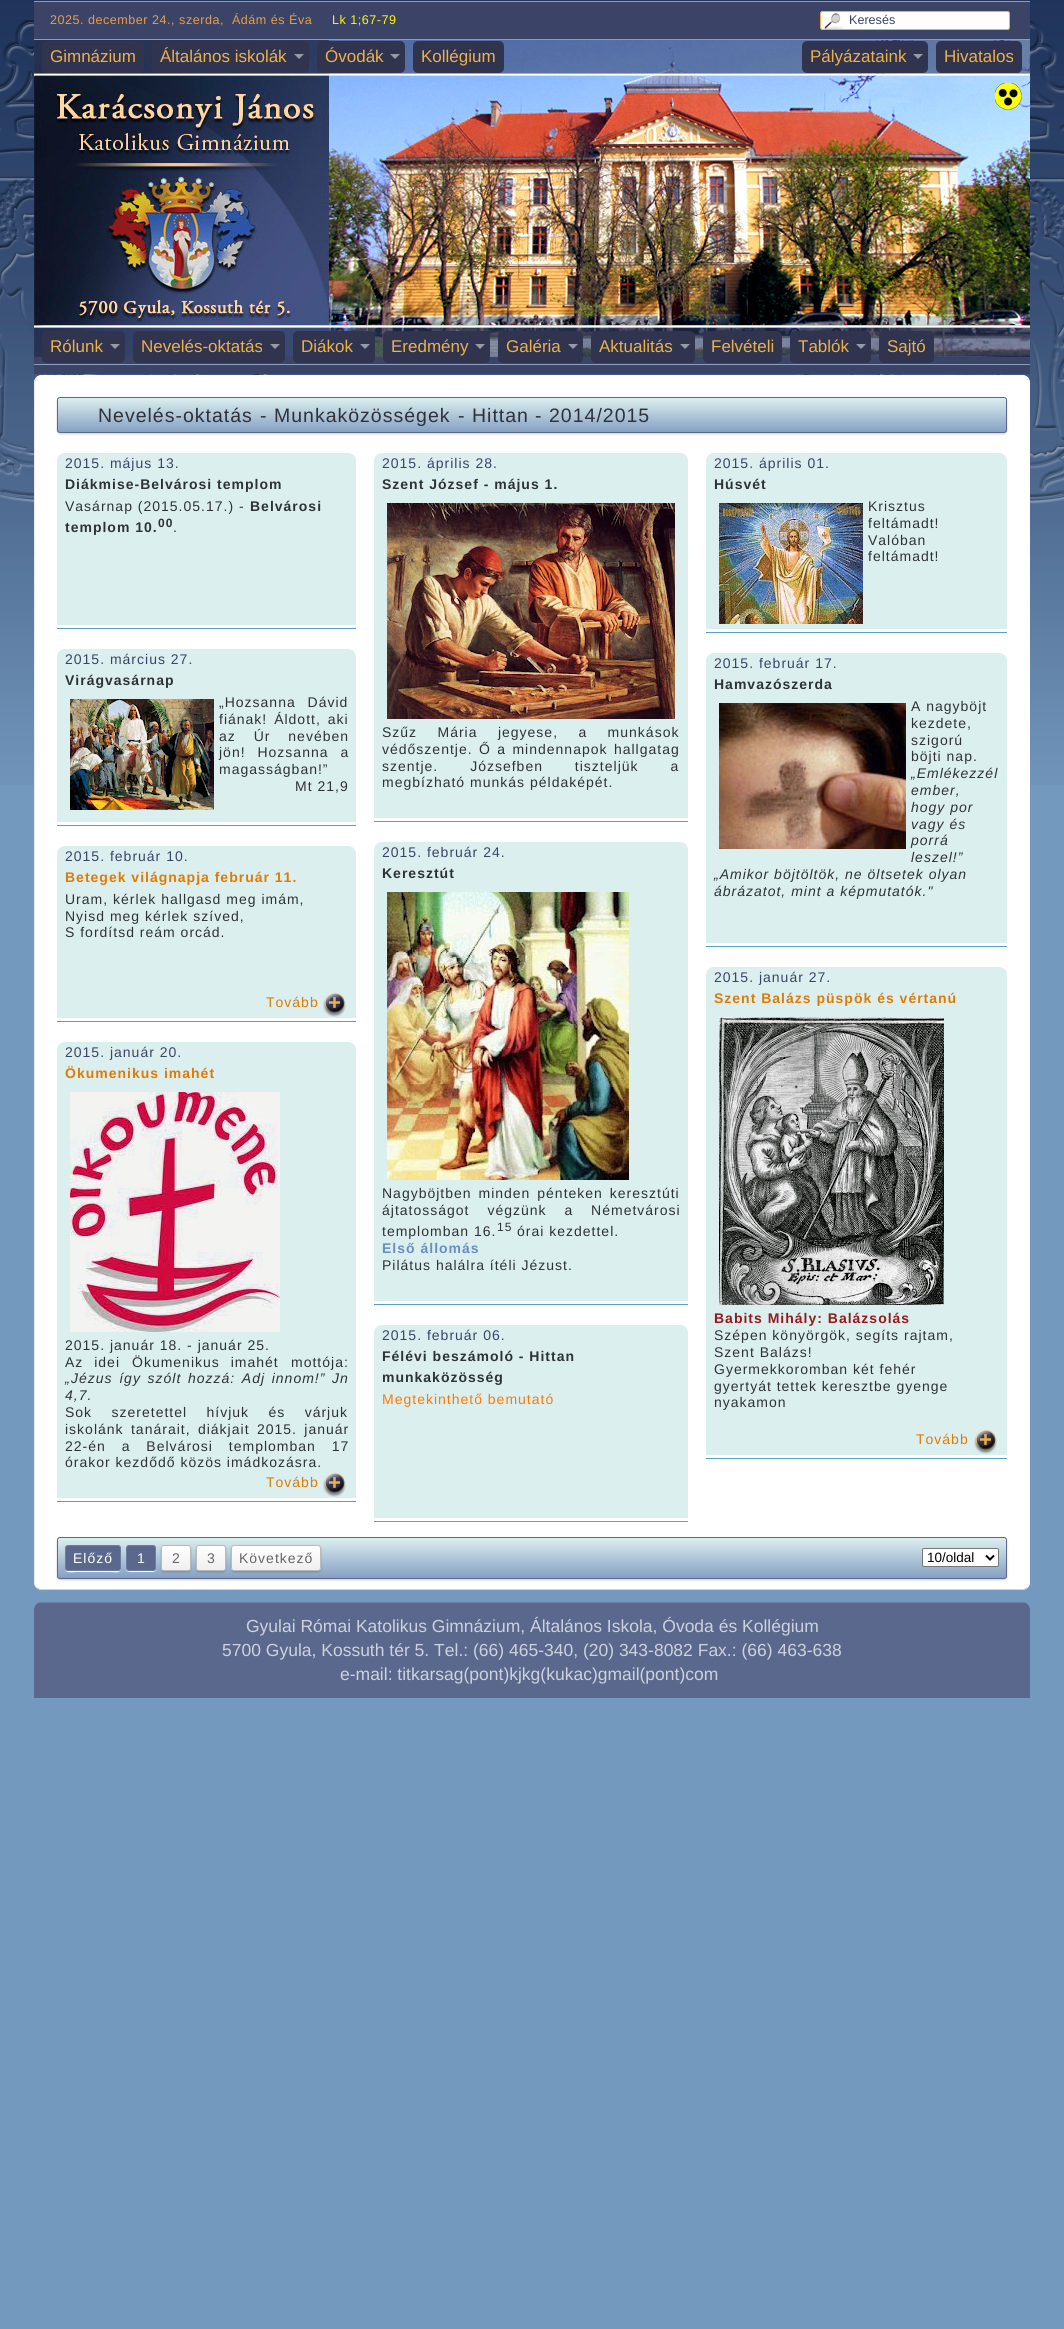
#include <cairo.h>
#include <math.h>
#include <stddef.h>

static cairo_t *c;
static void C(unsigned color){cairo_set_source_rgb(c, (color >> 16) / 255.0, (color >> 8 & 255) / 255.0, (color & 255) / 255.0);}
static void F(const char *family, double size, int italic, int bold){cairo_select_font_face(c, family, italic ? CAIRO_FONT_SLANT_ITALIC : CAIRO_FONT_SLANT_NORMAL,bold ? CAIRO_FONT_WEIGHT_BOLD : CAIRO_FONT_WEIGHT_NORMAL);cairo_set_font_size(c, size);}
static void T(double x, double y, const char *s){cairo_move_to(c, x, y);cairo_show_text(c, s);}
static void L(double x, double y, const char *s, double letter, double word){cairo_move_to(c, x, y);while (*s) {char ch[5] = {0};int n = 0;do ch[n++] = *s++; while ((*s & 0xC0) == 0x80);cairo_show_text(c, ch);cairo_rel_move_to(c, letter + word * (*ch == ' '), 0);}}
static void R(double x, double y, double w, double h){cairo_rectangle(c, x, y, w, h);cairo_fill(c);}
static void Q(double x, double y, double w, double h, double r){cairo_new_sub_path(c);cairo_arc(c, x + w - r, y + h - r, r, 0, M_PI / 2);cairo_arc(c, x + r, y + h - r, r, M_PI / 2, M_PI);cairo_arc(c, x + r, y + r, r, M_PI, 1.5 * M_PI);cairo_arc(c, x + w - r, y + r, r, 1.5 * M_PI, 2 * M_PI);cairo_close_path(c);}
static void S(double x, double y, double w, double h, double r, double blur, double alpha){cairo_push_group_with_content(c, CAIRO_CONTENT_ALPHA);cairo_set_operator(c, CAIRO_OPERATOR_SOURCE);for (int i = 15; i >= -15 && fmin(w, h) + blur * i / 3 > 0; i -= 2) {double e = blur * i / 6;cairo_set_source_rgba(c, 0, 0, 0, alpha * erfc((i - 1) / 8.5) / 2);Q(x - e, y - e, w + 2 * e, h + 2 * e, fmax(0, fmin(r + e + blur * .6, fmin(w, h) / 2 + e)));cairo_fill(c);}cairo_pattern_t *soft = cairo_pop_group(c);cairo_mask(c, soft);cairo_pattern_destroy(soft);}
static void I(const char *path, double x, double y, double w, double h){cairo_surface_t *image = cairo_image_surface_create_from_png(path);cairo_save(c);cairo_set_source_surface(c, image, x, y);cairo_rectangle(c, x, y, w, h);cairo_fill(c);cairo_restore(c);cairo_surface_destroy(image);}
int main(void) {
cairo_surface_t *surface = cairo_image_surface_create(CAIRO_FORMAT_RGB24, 1064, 2329);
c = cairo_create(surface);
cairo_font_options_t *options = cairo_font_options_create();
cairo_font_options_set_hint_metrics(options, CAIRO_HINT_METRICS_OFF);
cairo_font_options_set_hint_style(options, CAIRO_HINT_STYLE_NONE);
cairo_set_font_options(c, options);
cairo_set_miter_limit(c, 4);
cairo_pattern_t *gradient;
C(0x7499be);
cairo_paint(c);
I("1.png",0,0,1064,785);
I("2.png",0,20,1064,484);
C(0x3b4367);
R(34,2,996,37);
C(0x8c9ec0);
R(34,1,996,1);
R(34,39,996,1);
F("Liberation Sans",12.6,0,0);
C(0xe69d48);
L(50,24,"2025. december 24., szerda,  Ádám és Éva",.5,0);
C(0xfff600);
L(332,24,"Lk 1;67-79",.5,0);
C(0xffffff);
Q(820,11,190,19,3);
cairo_fill(c);
I("3.png",824,13,20,16);
Q(820.5,11.5,189,18,2.5);
C(0xecb14b);
cairo_set_line_width(c,1);
cairo_stroke(c);
C(0x3b4367);
T(849,24,"Keresés");
R(34,357,996,7);
C(0x8c9ec0);
R(34,364,996,1);
I("4.png",34,40,996,317);
C(0x30344f);
Q(42,41,102,32,5);
cairo_fill(c);
F("Liberation Sans",17,0,0);
C(0xecb14b);
T(50,62,"Gimnázium");
C(0x30344f);
Q(152,41,157,32,5);
cairo_fill(c);
C(0xecb14b);
T(160,62,"Általános iskolák");
C(0x989aa7);
cairo_new_path(c);
cairo_move_to(c,294,54);
cairo_line_to(c,304,54);
cairo_line_to(c,299,59);
cairo_close_path(c);
cairo_fill(c);
C(0x30344f);
Q(317,41,88,32,5);
cairo_fill(c);
C(0xecb14b);
T(325,62,"Óvodák");
C(0x989aa7);
cairo_new_path(c);
cairo_move_to(c,390,54);
cairo_line_to(c,400,54);
cairo_line_to(c,395,59);
cairo_close_path(c);
cairo_fill(c);
C(0x30344f);
Q(413,41,91,32,5);
cairo_fill(c);
C(0xecb14b);
T(421,62,"Kollégium");
C(0x30344f);
Q(802,41,126,32,5);
cairo_fill(c);
C(0xecb14b);
T(810,62,"Pályázataink");
C(0x989aa7);
cairo_new_path(c);
cairo_move_to(c,913,54);
cairo_line_to(c,923,54);
cairo_line_to(c,918,59);
cairo_close_path(c);
cairo_fill(c);
C(0x30344f);
Q(936,41,86,32,5);
cairo_fill(c);
C(0xecb14b);
T(944,62,"Hivatalos");
C(0x30344f);
Q(42,331,83,32,5);
cairo_fill(c);
C(0xecb14b);
T(50,352,"Rólunk");
C(0x989aa7);
cairo_new_path(c);
cairo_move_to(c,110,344);
cairo_line_to(c,120,344);
cairo_line_to(c,115,349);
cairo_close_path(c);
cairo_fill(c);
C(0x30344f);
Q(133,331,152,32,5);
cairo_fill(c);
C(0xecb14b);
T(141,352,"Nevelés-oktatás");
C(0x989aa7);
cairo_new_path(c);
cairo_move_to(c,270,344);
cairo_line_to(c,280,344);
cairo_line_to(c,275,349);
cairo_close_path(c);
cairo_fill(c);
C(0x30344f);
Q(293,331,82,32,5);
cairo_fill(c);
C(0xecb14b);
T(301,352,"Diákok");
C(0x989aa7);
cairo_new_path(c);
cairo_move_to(c,360,344);
cairo_line_to(c,370,344);
cairo_line_to(c,365,349);
cairo_close_path(c);
cairo_fill(c);
C(0x30344f);
Q(383,331,107,32,5);
cairo_fill(c);
C(0xecb14b);
T(391,352,"Eredmény");
C(0x989aa7);
cairo_new_path(c);
cairo_move_to(c,475,344);
cairo_line_to(c,485,344);
cairo_line_to(c,480,349);
cairo_close_path(c);
cairo_fill(c);
C(0x30344f);
Q(498,331,85,32,5);
cairo_fill(c);
C(0xecb14b);
T(506,352,"Galéria");
C(0x989aa7);
cairo_new_path(c);
cairo_move_to(c,568,344);
cairo_line_to(c,578,344);
cairo_line_to(c,573,349);
cairo_close_path(c);
cairo_fill(c);
C(0x30344f);
Q(591,331,104,32,5);
cairo_fill(c);
C(0xecb14b);
T(599,352,"Aktualitás");
C(0x989aa7);
cairo_new_path(c);
cairo_move_to(c,680,344);
cairo_line_to(c,690,344);
cairo_line_to(c,685,349);
cairo_close_path(c);
cairo_fill(c);
C(0x30344f);
Q(703,331,79,32,5);
cairo_fill(c);
C(0xecb14b);
T(711,352,"Felvételi");
C(0x30344f);
Q(790,331,81,32,5);
cairo_fill(c);
C(0xecb14b);
T(798,352,"Tablók");
C(0x989aa7);
cairo_new_path(c);
cairo_move_to(c,856,344);
cairo_line_to(c,866,344);
cairo_line_to(c,861,349);
cairo_close_path(c);
cairo_fill(c);
C(0x30344f);
Q(879,331,55,32,5);
cairo_fill(c);
C(0xecb14b);
T(887,352,"Sajtó");
C(0x3b4367);
R(34,365,996,9);
C(0xffffff);
Q(34,375,996,1215,8);
cairo_fill(c);
cairo_new_path(c);
cairo_move_to(c,36.5,377.5);
cairo_curve_to(c,38,376.5,40,375.5,42,375.5);
cairo_line_to(c,1022,375.5);
cairo_curve_to(c,1024,375.5,1026,376.5,1027.5,377.5);
cairo_curve_to(c,1028.5,379,1029.5,381,1029.5,383);
cairo_line_to(c,1029.5,1582);
cairo_curve_to(c,1029.5,1584,1028.5,1586,1027.5,1587.5);
cairo_stroke(c);
cairo_new_path(c);
cairo_move_to(c,1027.5,1587.5);
cairo_curve_to(c,1026,1588.5,1024,1589.5,1022,1589.5);
cairo_line_to(c,42,1589.5);
cairo_curve_to(c,40,1589.5,38,1588.5,36.5,1587.5);
C(0xc9d5e5);
cairo_stroke(c);
cairo_new_path(c);
cairo_move_to(c,36.5,1587.5);
cairo_curve_to(c,35.5,1586,34.5,1584,34.5,1582);
cairo_line_to(c,34.5,383);
cairo_curve_to(c,34.5,381,35.5,379,36.5,377.5);
C(0xe7ece3);
cairo_stroke(c);
C(0x000000);
S(57,398,950,36,3,1,.2);
cairo_save(c);
Q(57,397,950,36,3);
cairo_clip(c);
gradient = cairo_pattern_create_linear(532,398,532,432);
cairo_pattern_add_color_stop_rgba(gradient,0,0.863,0.937,0.937,1);
cairo_pattern_add_color_stop_rgba(gradient,1,0.522,0.627,0.765,1);
cairo_set_source(c,gradient);
cairo_pattern_destroy(gradient);
R(57,398,950,34);
cairo_restore(c);
Q(57.5,397.5,949,35,2.5);
C(0x59688c);
cairo_stroke(c);
F("Liberation Sans",19.5,0,0);
C(0x2e3238);
L(98,422,"Nevelés-oktatás",1,0);
L(260,422,"-",1,0);
L(274,422,"Munkaközösségek",1,0);
L(458,422,"-",1,0);
L(472,422,"Hittan",1,0);
L(535,422,"-",1,0);
L(549,422,"2014/2015",1,0);
C(0xdcefef);
cairo_new_path(c);
cairo_move_to(c,65,453);
cairo_line_to(c,348,453);
cairo_curve_to(c,352.5,453,356,456.5,356,461);
cairo_line_to(c,356,625);
cairo_line_to(c,57,625);
cairo_line_to(c,57,461);
cairo_curve_to(c,57,456.5,60.5,453,65,453);
cairo_close_path(c);
cairo_fill(c);
F("Liberation Sans",14,0,0);
C(0x3b4367);
L(65,468,"2015. május 13.",1,0);
F("Liberation Sans",14,0,1);
C(0x2e3238);
L(65,489,"Diákmise-Belvárosi templom",1,0);
F("Liberation Sans",14,0,0);
L(65,511,"Vasárnap (2015.05.17.) -",1,0);
F("Liberation Sans",14,0,1);
L(250,511,"Belvárosi",1,0);
L(65,532,"templom 10.",1,0);
F("Liberation Sans",12,0,1);
L(158,527,"00",1,0);
F("Liberation Sans",14,0,0);
L(173,532,".",1,0);
C(0x58a0c3);
R(57,628,299,1);
C(0xdcefef);
cairo_new_path(c);
cairo_move_to(c,65,649);
cairo_line_to(c,348,649);
cairo_curve_to(c,352.5,649,356,652.5,356,657);
cairo_line_to(c,356,822);
cairo_line_to(c,57,822);
cairo_line_to(c,57,657);
cairo_curve_to(c,57,652.5,60.5,649,65,649);
cairo_close_path(c);
cairo_fill(c);
C(0x3b4367);
L(65,664,"2015. március 27.",1,0);
F("Liberation Sans",14,0,1);
C(0x2e3238);
L(65,685,"Virágvasárnap",1,0);
I("5.png",70,699,144,111);
F("Liberation Sans",14,0,0);
L(219,707,"„Hozsanna Dávid",1,7);
L(219,724,"fiának! Áldott, aki",1,2);
L(219,741,"az Úr nevében",1,13);
L(219,757,"jön! Hozsanna a",1,7);
L(219,774,"magasságban!”",1,0);
L(295,791,"Mt 21,9",1,0);
C(0x58a0c3);
R(57,825,299,1);
C(0xdcefef);
cairo_new_path(c);
cairo_move_to(c,65,846);
cairo_line_to(c,348,846);
cairo_curve_to(c,352.5,846,356,849.5,356,854);
cairo_line_to(c,356,1018);
cairo_line_to(c,57,1018);
cairo_line_to(c,57,854);
cairo_curve_to(c,57,849.5,60.5,846,65,846);
cairo_close_path(c);
cairo_fill(c);
C(0x3b4367);
L(65,861,"2015. február 10.",1,0);
F("Liberation Sans",14,0,1);
C(0xde7b05);
L(65,882,"Betegek világnapja február 11.",1,0);
F("Liberation Sans",14,0,0);
C(0x2e3238);
L(65,904,"Uram, kérlek hallgasd meg imám,",1,0);
L(65,921,"Nyisd meg kérlek szíved,",1,0);
L(65,937,"S fordítsd reám orcád.",1,0);
I("6.png",323,992,23,25);
C(0xde7b05);
L(266,1007,"Tovább",1,0);
C(0x58a0c3);
R(57,1021,299,1);
C(0xdcefef);
cairo_new_path(c);
cairo_move_to(c,65,1042);
cairo_line_to(c,348,1042);
cairo_curve_to(c,352.5,1042,356,1045.5,356,1050);
cairo_line_to(c,356,1498);
cairo_line_to(c,57,1498);
cairo_line_to(c,57,1050);
cairo_curve_to(c,57,1045.5,60.5,1042,65,1042);
cairo_close_path(c);
cairo_fill(c);
C(0x3b4367);
L(65,1057,"2015. január 20.",1,0);
F("Liberation Sans",14,0,1);
C(0xde7b05);
L(65,1078,"Ökumenikus imahét",1,0);
I("7.png",70,1092,210,240);
F("Liberation Sans",14,0,0);
C(0x2e3238);
L(65,1350,"2015. január 18. - január 25.",1,0);
L(65,1367,"Az idei",1,6);
L(132,1367,"Ökumenikus imahét",1,6);
L(291,1367,"mottója:",1,0);
F("Liberation Sans",14,1,0);
L(65,1383,"„",1,0);
L(71,1383,"Jézus így szólt hozzá: Adj innom!” Jn",1,1.75);
L(65,1400,"4,7.",1,0);
F("Liberation Sans",14,0,0);
L(65,1417,"Sok szeretettel hívjuk és várjuk",1,14.5);
L(65,1434,"iskolánk tanárait, diákjait 2015. január",1,2.5);
L(65,1451,"22-én a Belvárosi templomban 17",1,11);
L(65,1467,"órakor kezdődő közös imádkozásra.",1,0);
I("6.png",323,1472,23,25);
C(0xde7b05);
L(266,1487,"Tovább",1,0);
C(0x58a0c3);
R(57,1501,299,1);
C(0xdcefef);
cairo_new_path(c);
cairo_move_to(c,382,453);
cairo_line_to(c,680,453);
cairo_curve_to(c,684.5,453,688,456.5,688,461);
cairo_line_to(c,688,818);
cairo_line_to(c,374,818);
cairo_line_to(c,374,461);
cairo_curve_to(c,374,456.5,377.5,453,382,453);
cairo_close_path(c);
cairo_fill(c);
C(0x3b4367);
L(382,468,"2015. április 28.",1,0);
F("Liberation Sans",14,0,1);
C(0x2e3238);
L(382,489,"Szent József - május 1.",1,0);
I("8.png",387,503,288,216);
F("Liberation Sans",14,0,0);
L(382,737,"Szűz Mária jegyese, a munkások",1,15.5);
L(382,754,"védőszentje. Ő a mindennapok hallgatag",1,1.5);
L(382,771,"szentje. Józsefben tiszteljük a",1,27);
L(382,787,"megbízható munkás példaképét.",1,0);
C(0x58a0c3);
R(374,821,314,1);
C(0xdcefef);
cairo_new_path(c);
cairo_move_to(c,382,842);
cairo_line_to(c,680,842);
cairo_curve_to(c,684.5,842,688,845.5,688,850);
cairo_line_to(c,688,1301);
cairo_line_to(c,374,1301);
cairo_line_to(c,374,850);
cairo_curve_to(c,374,845.5,377.5,842,382,842);
cairo_close_path(c);
cairo_fill(c);
C(0x3b4367);
L(382,857,"2015. február 24.",1,0);
F("Liberation Sans",14,0,1);
C(0x2e3238);
L(382,878,"Keresztút",1,0);
I("9.png",387,892,242,288);
F("Liberation Sans",14,0,0);
L(382,1198,"Nagyböjtben minden pénteken keresztúti",1,2);
L(382,1215,"ájtatosságot végzünk a Németvárosi",1,13);
L(382,1236,"templomban 16.",1,0);
F("Liberation Sans",12,0,0);
L(497,1231,"15",1,0);
F("Liberation Sans",14,0,0);
L(517,1236,"órai kezdettel.",1,0);
F("Liberation Sans",14,0,1);
C(0x698ebe);
L(382,1253,"Első állomás",1,0);
F("Liberation Sans",14,0,0);
C(0x2e3238);
L(382,1270,"Pilátus halálra ítéli Jézust.",1,0);
C(0x58a0c3);
R(374,1304,314,1);
C(0xdcefef);
cairo_new_path(c);
cairo_move_to(c,382,1325);
cairo_line_to(c,680,1325);
cairo_curve_to(c,684.5,1325,688,1328.5,688,1333);
cairo_line_to(c,688,1518);
cairo_line_to(c,374,1518);
cairo_line_to(c,374,1333);
cairo_curve_to(c,374,1328.5,377.5,1325,382,1325);
cairo_close_path(c);
cairo_fill(c);
C(0x3b4367);
L(382,1340,"2015. február 06.",1,0);
F("Liberation Sans",14,0,1);
C(0x2e3238);
L(382,1361,"Félévi beszámoló - Hittan",1,0);
L(382,1382,"munkaközösség",1,0);
F("Liberation Sans",14,0,0);
C(0xff7800);
L(382,1404,"Megtekinthető bemutató",1,0);
C(0x58a0c3);
R(374,1521,314,1);
C(0xdcefef);
cairo_new_path(c);
cairo_move_to(c,714,453);
cairo_line_to(c,999,453);
cairo_curve_to(c,1003.5,453,1007,456.5,1007,461);
cairo_line_to(c,1007,629);
cairo_line_to(c,706,629);
cairo_line_to(c,706,461);
cairo_curve_to(c,706,456.5,709.5,453,714,453);
cairo_close_path(c);
cairo_fill(c);
C(0x3b4367);
L(714,468,"2015. április 01.",1,0);
F("Liberation Sans",14,0,1);
C(0x2e3238);
L(714,489,"Húsvét",1,0);
I("10.png",719,503,144,121);
F("Liberation Sans",14,0,0);
L(868,511,"Krisztus",1,0);
L(868,528,"feltámadt!",1,0);
L(868,545,"Valóban",1,0);
L(868,561,"feltámadt!",1,0);
C(0x58a0c3);
R(706,632,301,1);
C(0xdcefef);
cairo_new_path(c);
cairo_move_to(c,714,653);
cairo_line_to(c,999,653);
cairo_curve_to(c,1003.5,653,1007,656.5,1007,661);
cairo_line_to(c,1007,943);
cairo_line_to(c,706,943);
cairo_line_to(c,706,661);
cairo_curve_to(c,706,656.5,709.5,653,714,653);
cairo_close_path(c);
cairo_fill(c);
C(0x3b4367);
L(714,668,"2015. február 17.",1,0);
F("Liberation Sans",14,0,1);
C(0x2e3238);
L(714,689,"Hamvazószerda",1,0);
I("11.png",719,703,187,146);
F("Liberation Sans",14,0,0);
L(911,711,"A nagyböjt",1,0);
L(911,728,"kezdete,",1,0);
L(911,745,"szigorú",1,0);
L(911,761,"böjti nap.",1,0);
F("Liberation Sans",14,1,0);
L(911,778,"„Emlékezzél",1,0);
L(911,795,"ember,",1,0);
L(911,812,"hogy por",1,0);
L(911,829,"vagy és",1,0);
L(911,845,"porrá",1,0);
L(911,862,"leszel!”",1,0);
L(714,879,"„Amikor böjtöltök, ne öltsetek olyan",1,0);
L(714,896,"ábrázatot, mint a képmutatók.\"",1,0);
C(0x58a0c3);
R(706,946,301,1);
C(0xdcefef);
cairo_new_path(c);
cairo_move_to(c,714,967);
cairo_line_to(c,999,967);
cairo_curve_to(c,1003.5,967,1007,970.5,1007,975);
cairo_line_to(c,1007,1455);
cairo_line_to(c,706,1455);
cairo_line_to(c,706,975);
cairo_curve_to(c,706,970.5,709.5,967,714,967);
cairo_close_path(c);
cairo_fill(c);
F("Liberation Sans",14,0,0);
C(0x3b4367);
L(714,982,"2015. január 27.",1,0);
F("Liberation Sans",14,0,1);
C(0xde7b05);
L(714,1003,"Szent Balázs püspök és vértanú",1,0);
I("12.png",719,1017,225,288);
C(0x931a1d);
L(714,1323,"Babits Mihály: Balázsolás",1,0);
F("Liberation Sans",14,0,0);
C(0x2e3238);
L(714,1340,"Szépen könyörgök, segíts rajtam,",1,0);
L(714,1357,"Szent Balázs!",1,0);
L(714,1374,"Gyermekkoromban két fehér",1,0);
L(714,1391,"gyertyát tettek keresztbe gyenge",1,0);
L(714,1407,"nyakamon",1,0);
I("6.png",974,1429,23,25);
C(0xde7b05);
L(916,1444,"Tovább",1,0);
C(0x58a0c3);
R(706,1458,301,1);
C(0x000000);
S(57,1538,950,42,3,1,.2);
cairo_save(c);
Q(57,1537,950,42,3);
cairo_clip(c);
gradient = cairo_pattern_create_linear(532,1538,532,1578);
cairo_pattern_add_color_stop_rgba(gradient,0,0.863,0.937,0.937,1);
cairo_pattern_add_color_stop_rgba(gradient,1,0.522,0.627,0.765,1);
cairo_set_source(c,gradient);
cairo_pattern_destroy(gradient);
R(57,1538,950,40);
cairo_restore(c);
Q(57.5,1537.5,949,41,2.5);
C(0x59688c);
cairo_stroke(c);
C(0xffffff);
cairo_new_path(c);
cairo_move_to(c,65,1568);
cairo_curve_to(c,65,1574,72,1572,76,1572);
cairo_line_to(c,110,1572);
cairo_curve_to(c,114,1572,121,1574,121,1568);
cairo_curve_to(c,121,1570,120,1571,118,1571);
cairo_line_to(c,68,1571);
cairo_curve_to(c,66,1571,65,1570,65,1568);
cairo_close_path(c);
cairo_fill(c);
C(0x59688c);
Q(65.5,1545.5,55,25,2.5);
cairo_fill_preserve(c);
C(0x6b7ea2);
cairo_stroke(c);
C(0xffffff);
L(73,1563,"Előző",1,0);
cairo_new_path(c);
cairo_move_to(c,126,1568);
cairo_curve_to(c,126,1572.5,129,1572,133,1572);
cairo_line_to(c,149,1572);
cairo_curve_to(c,153,1572,156,1572.5,156,1568);
cairo_curve_to(c,156,1569.5,154.5,1571,153,1571);
cairo_line_to(c,129,1571);
cairo_curve_to(c,127.5,1571,126,1569.5,126,1568);
cairo_close_path(c);
cairo_fill(c);
C(0x59688c);
Q(126.5,1545.5,29,25,2.5);
cairo_fill_preserve(c);
C(0x6b7ea2);
cairo_stroke(c);
C(0xffffff);
L(137,1563,"1",1,0);
C(0x000000);
S(161,1546,30,26,3,1,.2);
cairo_save(c);
Q(161,1545,30,26,3);
cairo_clip(c);
gradient = cairo_pattern_create_linear(176,1546,176,1570);
cairo_pattern_add_color_stop_rgba(gradient,0,1,1,1,1);
cairo_pattern_add_color_stop_rgba(gradient,1,0.937,0.937,0.937,1);
cairo_set_source(c,gradient);
cairo_pattern_destroy(gradient);
R(161,1546,30,24);
cairo_restore(c);
Q(161.5,1545.5,29,25,2.5);
C(0xbbbbbb);
cairo_stroke(c);
C(0x666666);
L(172,1563,"2",1,0);
C(0x000000);
S(196,1546,30,26,3,1,.2);
cairo_save(c);
Q(196,1545,30,26,3);
cairo_clip(c);
gradient = cairo_pattern_create_linear(211,1546,211,1570);
cairo_pattern_add_color_stop_rgba(gradient,0,1,1,1,1);
cairo_pattern_add_color_stop_rgba(gradient,1,0.937,0.937,0.937,1);
cairo_set_source(c,gradient);
cairo_pattern_destroy(gradient);
R(196,1546,30,24);
cairo_restore(c);
Q(196.5,1545.5,29,25,2.5);
C(0xbbbbbb);
cairo_stroke(c);
C(0x666666);
L(207,1563,"3",1,0);
C(0x000000);
S(231,1546,90,26,3,1,.2);
cairo_save(c);
Q(231,1545,90,26,3);
cairo_clip(c);
gradient = cairo_pattern_create_linear(276,1546,276,1570);
cairo_pattern_add_color_stop_rgba(gradient,0,1,1,1,1);
cairo_pattern_add_color_stop_rgba(gradient,1,0.937,0.937,0.937,1);
cairo_set_source(c,gradient);
cairo_pattern_destroy(gradient);
R(231,1546,90,24);
cairo_restore(c);
Q(231.5,1545.5,89,25,2.5);
C(0xbbbbbb);
cairo_stroke(c);
C(0x666666);
L(239,1563,"Következő",1,0);
C(0xffffff);
Q(922.5,1548.5,76,18,1.5);
cairo_fill_preserve(c);
C(0x767676);
cairo_stroke(c);
cairo_new_path(c);
cairo_move_to(c,986,1555.5);
cairo_line_to(c,990,1559.5);
cairo_line_to(c,994,1555.5);
C(0x000000);
cairo_set_line_width(c,2);
cairo_stroke(c);
F("Liberation Sans",13.5,0,0);
T(927,1562,"10/oldal");
C(0x59688c);
cairo_new_path(c);
cairo_move_to(c,42,1602);
cairo_line_to(c,1022,1602);
cairo_curve_to(c,1026.5,1602,1030,1605.5,1030,1610);
cairo_line_to(c,1030,1698);
cairo_line_to(c,34,1698);
cairo_line_to(c,34,1610);
cairo_curve_to(c,34,1605.5,37.5,1602,42,1602);
cairo_close_path(c);
cairo_fill(c);
C(0x6b7ea2);
R(38,1602,988,1);
F("Liberation Sans",17.5,0,0);
C(0xced2dd);
T(246,1632,"Gyulai Római Katolikus Gimnázium, Általános Iskola, Óvoda és Kollégium");
T(222,1656,"5700 Gyula, Kossuth tér 5. Tel.: (66) 465-340, (20) 343-8082 Fax.: (66) 463-638");
T(340,1680,"e-mail: titkarsag(pont)kjkg(kukac)gmail(pont)com");
cairo_surface_write_to_png(surface, "o.png");
cairo_font_options_destroy(options);
cairo_destroy(c);
cairo_surface_destroy(surface);
return 0;
}
